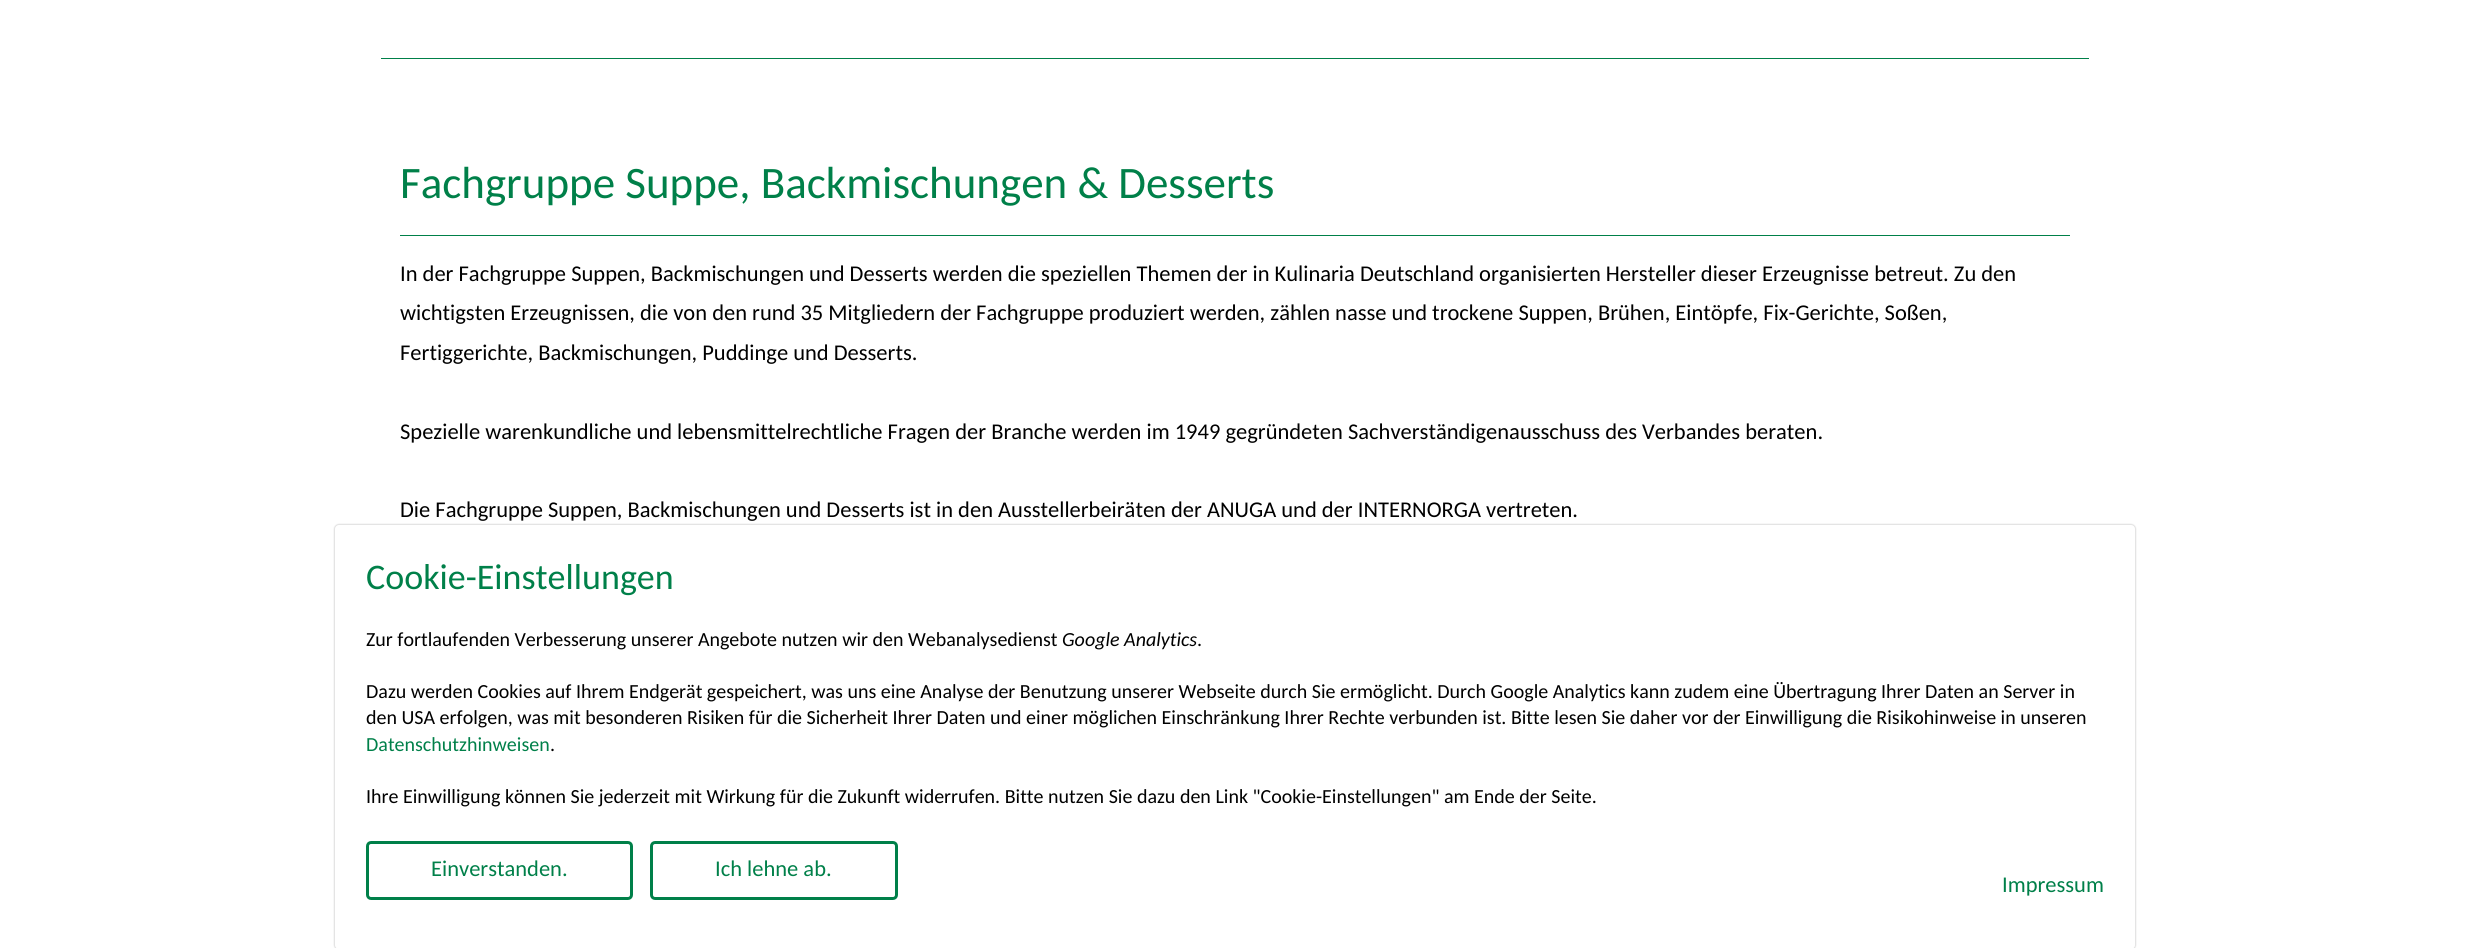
#include <cairo.h>
#include <math.h>
#include <stddef.h>

static cairo_t *c;
static void C(unsigned color){cairo_set_source_rgb(c, (color >> 16) / 255.0, (color >> 8 & 255) / 255.0, (color & 255) / 255.0);}
static void F(const char *family, double size, int italic, int bold){cairo_select_font_face(c, family, italic ? CAIRO_FONT_SLANT_ITALIC : CAIRO_FONT_SLANT_NORMAL,bold ? CAIRO_FONT_WEIGHT_BOLD : CAIRO_FONT_WEIGHT_NORMAL);cairo_set_font_size(c, size);}
static void T(double x, double y, const char *s){cairo_move_to(c, x, y);cairo_show_text(c, s);}
static void R(double x, double y, double w, double h){cairo_rectangle(c, x, y, w, h);cairo_fill(c);}
static void Q(double x, double y, double w, double h, double r){cairo_new_sub_path(c);cairo_arc(c, x + w - r, y + h - r, r, 0, M_PI / 2);cairo_arc(c, x + r, y + h - r, r, M_PI / 2, M_PI);cairo_arc(c, x + r, y + r, r, M_PI, 1.5 * M_PI);cairo_arc(c, x + w - r, y + r, r, 1.5 * M_PI, 2 * M_PI);cairo_close_path(c);}
static void S(double x, double y, double w, double h, double r, double blur, double alpha){cairo_push_group_with_content(c, CAIRO_CONTENT_ALPHA);cairo_set_operator(c, CAIRO_OPERATOR_SOURCE);for (int i = 15; i >= -15 && fmin(w, h) + blur * i / 3 > 0; i -= 2) {double e = blur * i / 6;cairo_set_source_rgba(c, 0, 0, 0, alpha * erfc((i - 1) / 8.5) / 2);Q(x - e, y - e, w + 2 * e, h + 2 * e, fmax(0, fmin(r + e + blur * .6, fmin(w, h) / 2 + e)));cairo_fill(c);}cairo_pattern_t *soft = cairo_pop_group(c);cairo_mask(c, soft);cairo_pattern_destroy(soft);}
int main(void) {
cairo_surface_t *surface = cairo_image_surface_create(CAIRO_FORMAT_RGB24, 2470, 948);
c = cairo_create(surface);
cairo_font_options_t *options = cairo_font_options_create();
cairo_font_options_set_hint_metrics(options, CAIRO_HINT_METRICS_OFF);
cairo_font_options_set_hint_style(options, CAIRO_HINT_STYLE_NONE);
cairo_set_font_options(c, options);
cairo_set_miter_limit(c, 4);
C(0xffffff);
cairo_paint(c);
F("Carlito",45,0,0);
C(0x008049);
T(400,198,"Fachgruppe Suppe, Backmischungen & Desserts");
R(400,235,1670,1);
F("Carlito",22.5,0,0);
C(0x000000);
T(400,281,"In der Fachgruppe Suppen, Backmischungen und Desserts werden die speziellen Themen der in Kulinaria Deutschland organisierten Hersteller dieser Erzeugnisse betreut. Zu den");
T(400,320,"wichtigsten Erzeugnissen, die von den rund 35 Mitgliedern der Fachgruppe produziert werden, zählen nasse und trockene Suppen, Brühen, Eintöpfe, Fix-Gerichte, Soßen,");
T(400,360,"Fertiggerichte, Backmischungen, Puddinge und Desserts.");
T(400,439,"Spezielle warenkundliche und lebensmittelrechtliche Fragen der Branche werden im 1949 gegründeten Sachverständigenausschuss des Verbandes beraten.");
T(400,517,"Die Fachgruppe Suppen, Backmischungen und Desserts ist in den Ausstellerbeiräten der ANUGA und der INTERNORGA vertreten.");
C(0x008049);
R(381,58,1708,1);
C(0xe0e0e0);
S(334,524,1802,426,5,.5,1);
C(0xffffff);
Q(335,525,1800,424,4);
cairo_fill(c);
F("Carlito",36,0,0);
C(0x008049);
T(366,589,"Cookie-Einstellungen");
F("Carlito",20,0,0);
C(0x000000);
T(366,646,"Zur fortlaufenden Verbesserung unserer Angebote nutzen wir den Webanalysedienst");
F("Carlito",20,1,0);
T(1062,646,"Google Analytics");
F("Carlito",20,0,0);
T(1197,646,".");
T(366,698,"Dazu werden Cookies auf Ihrem Endgerät gespeichert, was uns eine Analyse der Benutzung unserer Webseite durch Sie ermöglicht. Durch Google Analytics kann zudem eine Übertragung Ihrer Daten an Server in");
T(366,724,"den USA erfolgen, was mit besonderen Risiken für die Sicherheit Ihrer Daten und einer möglichen Einschränkung Ihrer Rechte verbunden ist. Bitte lesen Sie daher vor der Einwilligung die Risikohinweise in unseren");
C(0x008049);
T(366,751,"Datenschutzhinweisen");
C(0x000000);
T(550,751,".");
T(366,803,"Ihre Einwilligung können Sie jederzeit mit Wirkung für die Zukunft widerrufen. Bitte nutzen Sie dazu den Link \"Cookie-Einstellungen\" am Ende der Seite.");
Q(367.5,842.5,264,56,3.5);
C(0x008049);
cairo_set_line_width(c,3);
cairo_stroke(c);
F("Carlito",22.5,0,0);
T(431,876,"Einverstanden.");
Q(651.5,842.5,245,56,3.5);
cairo_stroke(c);
T(715,876,"Ich lehne ab.");
T(2002,892,"Impressum");
cairo_surface_write_to_png(surface, "o.png");
cairo_font_options_destroy(options);
cairo_destroy(c);
cairo_surface_destroy(surface);
return 0;
}
